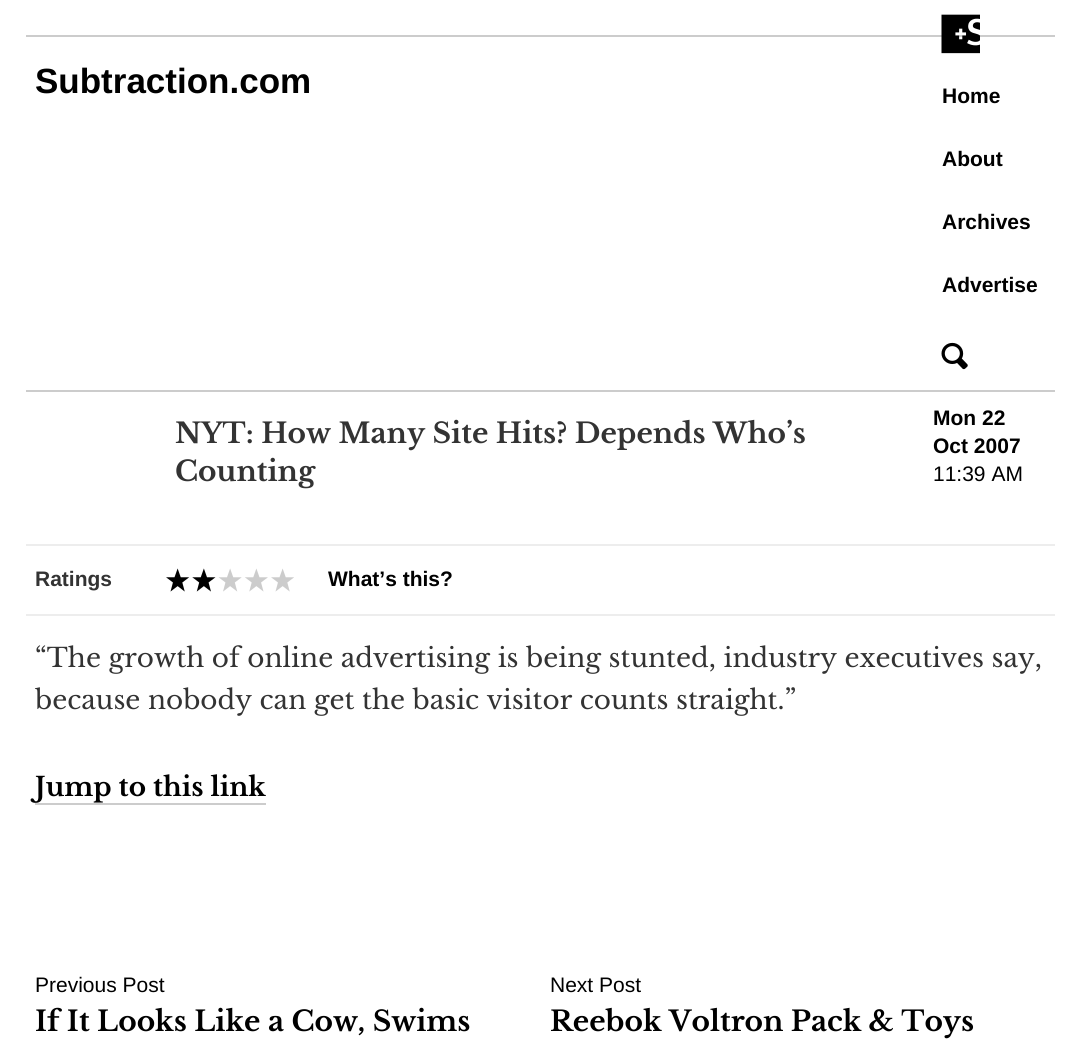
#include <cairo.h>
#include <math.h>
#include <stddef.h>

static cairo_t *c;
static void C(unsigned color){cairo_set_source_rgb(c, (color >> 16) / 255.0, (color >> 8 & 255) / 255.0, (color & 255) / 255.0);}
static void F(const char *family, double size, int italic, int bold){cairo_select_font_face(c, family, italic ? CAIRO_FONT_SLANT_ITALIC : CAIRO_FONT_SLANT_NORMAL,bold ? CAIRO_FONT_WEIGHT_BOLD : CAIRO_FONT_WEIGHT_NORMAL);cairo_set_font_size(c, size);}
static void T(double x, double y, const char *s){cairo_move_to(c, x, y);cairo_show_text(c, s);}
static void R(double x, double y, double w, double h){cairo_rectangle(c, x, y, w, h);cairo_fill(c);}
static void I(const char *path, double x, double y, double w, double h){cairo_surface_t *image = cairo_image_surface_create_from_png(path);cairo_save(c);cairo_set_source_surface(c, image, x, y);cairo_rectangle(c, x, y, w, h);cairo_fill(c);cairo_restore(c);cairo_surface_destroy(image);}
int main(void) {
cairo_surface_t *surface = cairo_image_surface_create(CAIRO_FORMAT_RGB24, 1081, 1058);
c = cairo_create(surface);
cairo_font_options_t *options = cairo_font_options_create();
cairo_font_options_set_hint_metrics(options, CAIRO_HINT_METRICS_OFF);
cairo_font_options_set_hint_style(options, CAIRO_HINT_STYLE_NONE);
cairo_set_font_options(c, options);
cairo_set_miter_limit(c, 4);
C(0xffffff);
cairo_paint(c);
C(0xcccccc);
R(26,35,1029,2);
F("Liberation Sans",35,0,1);
C(0x000000);
T(35,93,"Subtraction.com");
I("1.png",941,342,27,28);
I("2.png",941,14,39,40);
F("Liberation Sans",21,0,1);
T(942,103,"Home");
T(942,166,"About");
T(942,229,"Archives");
T(942,292,"Advertise");
C(0xcccccc);
R(26,390,1029,2);
C(0xededed);
R(26,544,1029,2);
F("Libre Baskerville",28,0,1);
C(0x333333);
T(175,443,"NYT: How Many Site Hits? Depends Who’s");
T(175,481,"Counting");
F("Liberation Sans",21,0,1);
C(0x000000);
T(933,425,"Mon 22");
T(933,453,"Oct 2007");
F("Liberation Sans",21,0,0);
T(933,481,"11:39 AM");
C(0xededed);
R(26,614,1029,2);
F("Liberation Sans",21,0,1);
C(0x333333);
T(35,586,"Ratings");
I("3.png",166,568,50,24);
I("4.png",218,568,76,24);
C(0x000000);
T(328,586,"What’s this?");
F("Libre Baskerville",26.25,0,0);
C(0x333333);
T(35,667,"“The growth of online advertising is being stunted, industry executives say,");
T(35,709,"because nobody can get the basic visitor counts straight.”");
F("Libre Baskerville",26.25,0,1);
C(0x000000);
T(35,796,"Jump to this link");
C(0xcccccc);
R(35,803,231,2);
F("Liberation Sans",21,0,0);
C(0x000000);
T(35,992,"Previous Post");
F("Libre Baskerville",28,0,1);
T(35,1031,"If It Looks Like a Cow, Swims");
F("Liberation Sans",21,0,0);
T(550,992,"Next Post");
F("Libre Baskerville",28,0,1);
T(550,1031,"Reebok Voltron Pack & Toys");
cairo_surface_write_to_png(surface, "o.png");
cairo_font_options_destroy(options);
cairo_destroy(c);
cairo_surface_destroy(surface);
return 0;
}
